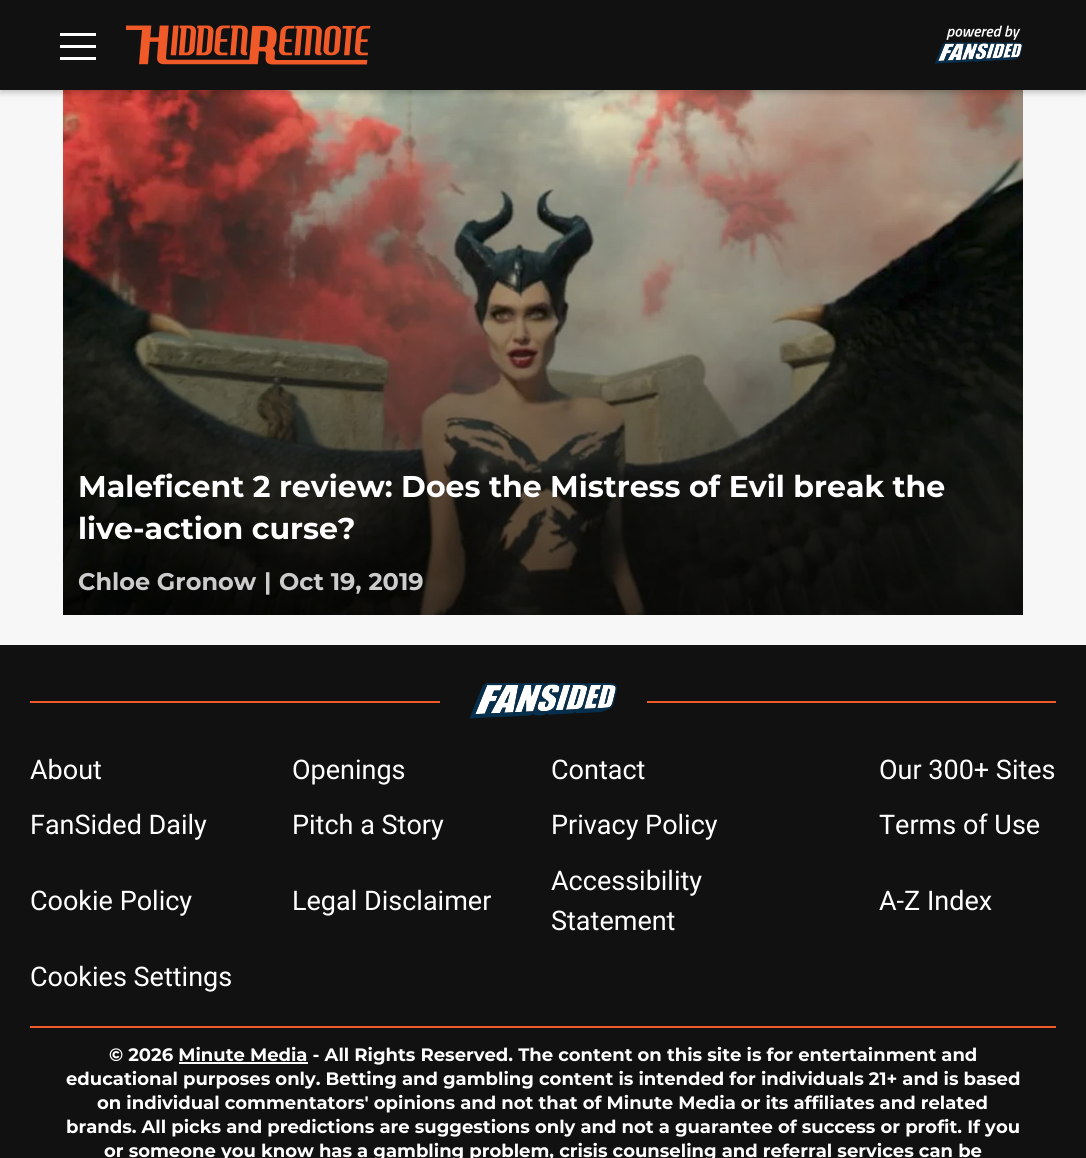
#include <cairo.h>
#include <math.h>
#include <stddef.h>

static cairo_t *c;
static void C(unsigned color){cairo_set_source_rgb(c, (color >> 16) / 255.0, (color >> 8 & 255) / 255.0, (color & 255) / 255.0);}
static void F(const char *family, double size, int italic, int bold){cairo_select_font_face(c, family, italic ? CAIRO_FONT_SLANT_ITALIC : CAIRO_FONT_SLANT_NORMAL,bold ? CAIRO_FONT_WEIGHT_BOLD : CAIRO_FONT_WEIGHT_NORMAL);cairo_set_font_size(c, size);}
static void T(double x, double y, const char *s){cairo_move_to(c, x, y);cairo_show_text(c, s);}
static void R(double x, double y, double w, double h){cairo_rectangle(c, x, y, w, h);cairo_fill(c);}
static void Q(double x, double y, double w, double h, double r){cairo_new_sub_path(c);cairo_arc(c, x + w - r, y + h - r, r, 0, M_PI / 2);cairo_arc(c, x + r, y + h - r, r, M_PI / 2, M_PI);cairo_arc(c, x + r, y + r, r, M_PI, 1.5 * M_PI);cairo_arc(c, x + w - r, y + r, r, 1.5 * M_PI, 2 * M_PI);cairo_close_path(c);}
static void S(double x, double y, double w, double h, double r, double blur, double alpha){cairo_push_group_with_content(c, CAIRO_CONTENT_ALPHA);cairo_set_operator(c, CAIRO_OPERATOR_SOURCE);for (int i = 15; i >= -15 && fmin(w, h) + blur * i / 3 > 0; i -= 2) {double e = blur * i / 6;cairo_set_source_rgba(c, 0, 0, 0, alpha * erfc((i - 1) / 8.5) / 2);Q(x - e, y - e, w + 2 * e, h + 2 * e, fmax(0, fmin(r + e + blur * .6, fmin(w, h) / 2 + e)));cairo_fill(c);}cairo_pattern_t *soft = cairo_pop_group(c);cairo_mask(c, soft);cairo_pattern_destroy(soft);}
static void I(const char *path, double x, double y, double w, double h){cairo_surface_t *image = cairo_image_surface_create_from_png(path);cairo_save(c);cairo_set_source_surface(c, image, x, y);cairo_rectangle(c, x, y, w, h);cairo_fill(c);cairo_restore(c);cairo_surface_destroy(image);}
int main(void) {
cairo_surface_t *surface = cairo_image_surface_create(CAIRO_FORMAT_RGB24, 1086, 1158);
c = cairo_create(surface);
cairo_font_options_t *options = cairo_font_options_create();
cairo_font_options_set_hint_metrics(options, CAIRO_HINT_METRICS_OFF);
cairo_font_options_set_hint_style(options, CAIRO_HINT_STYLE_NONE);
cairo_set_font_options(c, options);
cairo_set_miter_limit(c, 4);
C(0xf7f7f7);
cairo_paint(c);
I("3.png",63,90,960,525);
C(0x000000);
S(0,3,1086,90,0,3,.2);
C(0x111111);
R(0,0,1086,90);
C(0xffffff);
R(60,33,36,3);
R(60,45,36,3);
R(60,57,36,3);
I("1.png",126,25,245,40);
I("2.png",935,25,88,39);
F("Montserrat",30,0,1);
T(78,497,"Maleficent 2 review: Does the Mistress of Evil break the");
T(78,539,"live-action curse?");
F("Montserrat",24,0,1);
C(0xcccccc);
T(78,590,"Chloe Gronow");
T(264,590,"|");
T(279,590,"Oct 19, 2019");
C(0x111111);
R(0,645,1086,513);
C(0xf05a28);
R(30,701,410,2);
I("4.png",470,683,147,36);
R(647,701,409,2);
F("Roboto",27,0,0);
C(0xffffff);
T(30,779,"About");
T(292,779,"Openings");
T(551,779,"Contact");
T(879,779,"Our 300+ Sites");
T(30,834,"FanSided Daily");
T(292,834,"Pitch a Story");
T(551,834,"Privacy Policy");
T(879,834,"Terms of Use");
T(30,910,"Cookie Policy");
T(292,910,"Legal Disclaimer");
T(551,890,"Accessibility");
T(551,930,"Statement");
T(879,910,"A-Z Index");
T(30,986,"Cookies Settings");
C(0xf05a28);
R(30,1026,1026,2);
F("Montserrat",18,0,1);
C(0xffffff);
T(109,1061,"© 2026 Minute Media - All Rights Reserved. The content on this site is for entertainment and");
R(179,1062,129,2);
T(66,1085,"educational purposes only. Betting and gambling content is intended for individuals 21+ and is based");
T(97,1109,"on individual commentators' opinions and not that of Minute Media or its affiliates and related");
T(66,1133,"brands. All picks and predictions are suggestions only and not a guarantee of success or profit. If you");
T(104,1157,"or someone you know has a gambling problem, crisis counseling and referral services can be");
cairo_surface_write_to_png(surface, "o.png");
cairo_font_options_destroy(options);
cairo_destroy(c);
cairo_surface_destroy(surface);
return 0;
}
